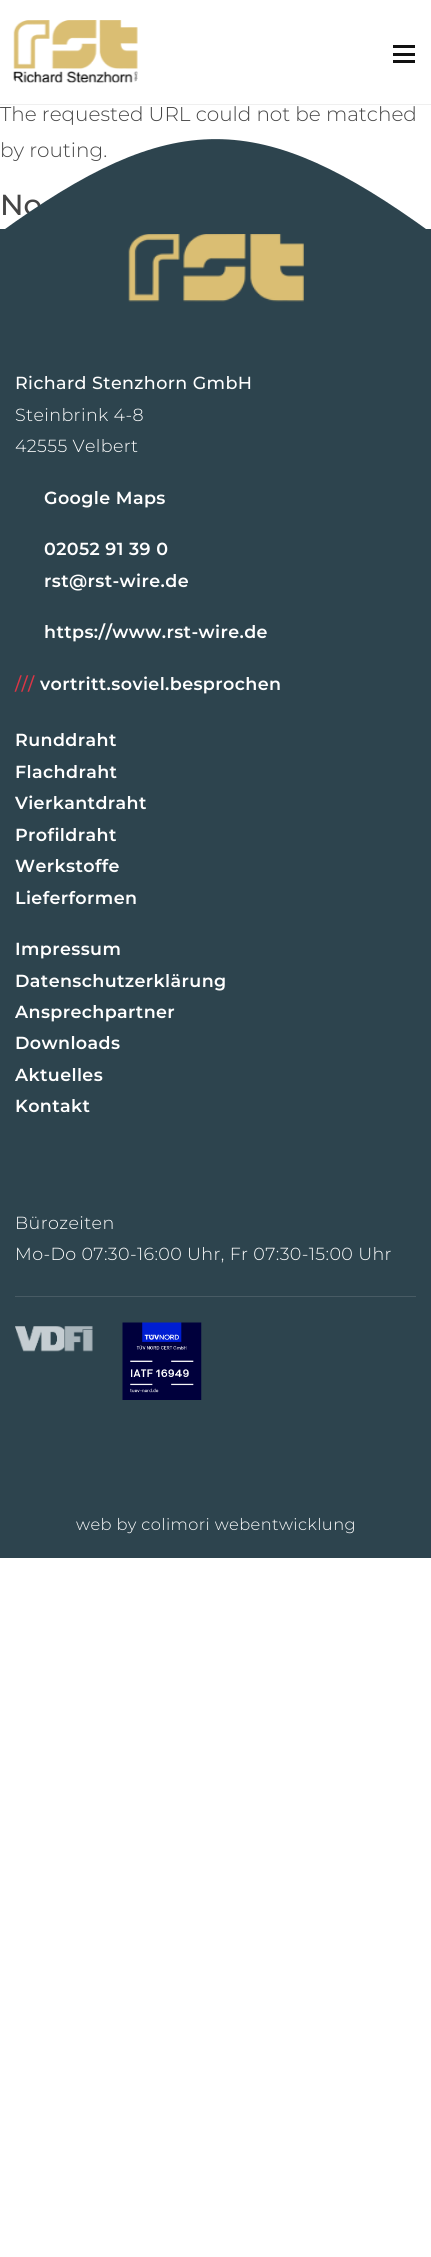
#include <cairo.h>
#include <math.h>
#include <stddef.h>

static cairo_t *c;
static void C(unsigned color){cairo_set_source_rgb(c, (color >> 16) / 255.0, (color >> 8 & 255) / 255.0, (color & 255) / 255.0);}
static void F(const char *family, double size, int italic, int bold){cairo_select_font_face(c, family, italic ? CAIRO_FONT_SLANT_ITALIC : CAIRO_FONT_SLANT_NORMAL,bold ? CAIRO_FONT_WEIGHT_BOLD : CAIRO_FONT_WEIGHT_NORMAL);cairo_set_font_size(c, size);}
static void T(double x, double y, const char *s){cairo_move_to(c, x, y);cairo_show_text(c, s);}
static void L(double x, double y, const char *s, double letter, double word){cairo_move_to(c, x, y);while (*s) {char ch[5] = {0};int n = 0;do ch[n++] = *s++; while ((*s & 0xC0) == 0x80);cairo_show_text(c, ch);cairo_rel_move_to(c, letter + word * (*ch == ' '), 0);}}
static void R(double x, double y, double w, double h){cairo_rectangle(c, x, y, w, h);cairo_fill(c);}
static void I(const char *path, double x, double y, double w, double h){cairo_surface_t *image = cairo_image_surface_create_from_png(path);cairo_save(c);cairo_set_source_surface(c, image, x, y);cairo_rectangle(c, x, y, w, h);cairo_fill(c);cairo_restore(c);cairo_surface_destroy(image);}
int main(void) {
cairo_surface_t *surface = cairo_image_surface_create(CAIRO_FORMAT_RGB24, 431, 2257);
c = cairo_create(surface);
cairo_font_options_t *options = cairo_font_options_create();
cairo_font_options_set_hint_metrics(options, CAIRO_HINT_METRICS_OFF);
cairo_font_options_set_hint_style(options, CAIRO_HINT_STYLE_NONE);
cairo_set_font_options(c, options);
cairo_set_miter_limit(c, 4);
C(0xffffff);
cairo_paint(c);
C(0xefefef);
R(0,104,431,1);
I("1.png",13,20,125,63);
C(0x111111);
R(393,45,22,3);
R(393,53,22,3);
R(393,60,22,3);
F("Montserrat Light",20,0,0);
C(0x454545);
T(0,121,"The requested URL could not be matched");
T(0,157,"by routing.");
F("Montserrat Medium",29,0,0);
T(0,215,"No");
C(0x2d444e);
R(0,229,431,1329);
cairo_new_path(c);
cairo_move_to(c,0,234);
cairo_curve_to(c,172,109,259,109,431,234);
cairo_close_path(c);
cairo_fill(c);
cairo_save(c);
cairo_rectangle(c,0,109,431,125);
cairo_clip(c);
cairo_new_path(c);
cairo_move_to(c,0,234);
cairo_curve_to(c,172.5,109,259,109,431,234);
cairo_close_path(c);
cairo_set_line_width(c,2.3);
cairo_stroke(c);
cairo_restore(c);
I("2.png",128,234,176,68);
F("Montserrat Medium",17.5,0,0);
C(0xffffff);
L(15,389,"Richard Stenzhorn GmbH",.4,0);
F("Montserrat Light",17.5,0,0);
L(15,421,"Steinbrink 4-8",.4,0);
L(15,452,"42555 Velbert",.4,0);
F("Montserrat SemiBold",17.5,0,0);
L(44,504,"Google Maps",.4,0);
L(44,555,"02052 91 39 0",.4,0);
L(44,587,"rst@rst-wire.de",.4,0);
L(44,638,"https://www.rst-wire.de",.4,0);
F("Montserrat Medium",17.5,0,0);
C(0xdc3545);
L(15,690,"///",.4,0);
F("Montserrat SemiBold",17.5,0,0);
C(0xffffff);
L(40,690,"vortritt.soviel.besprochen",.4,0);
L(15,746,"Runddraht",.4,0);
L(15,778,"Flachdraht",.4,0);
L(15,809,"Vierkantdraht",.4,0);
L(15,841,"Profildraht",.4,0);
L(15,872,"Werkstoffe",.4,0);
L(15,904,"Lieferformen",.4,0);
L(15,955,"Impressum",.4,0);
L(15,987,"Datenschutzerklärung",.4,0);
L(15,1018,"Ansprechpartner",.4,0);
L(15,1049,"Downloads",.4,0);
L(15,1081,"Aktuelles",.4,0);
L(15,1112,"Kontakt",.4,0);
F("Montserrat Light",17.5,0,0);
L(15,1229,"Bürozeiten",.4,0);
L(15,1260,"Mo-Do 07:30-16:00 Uhr, Fr 07:30-15:00 Uhr",.4,0);
C(0x485b64);
R(15,1296,401,1);
I("3.png",15,1326,78,26);
I("4.png",122,1322,80,78);
F("Montserrat Light",16.25,0,0);
C(0xffffff);
L(76,1530,"web by colimori webentwicklung",.4,0);
cairo_surface_write_to_png(surface, "o.png");
cairo_font_options_destroy(options);
cairo_destroy(c);
cairo_surface_destroy(surface);
return 0;
}
